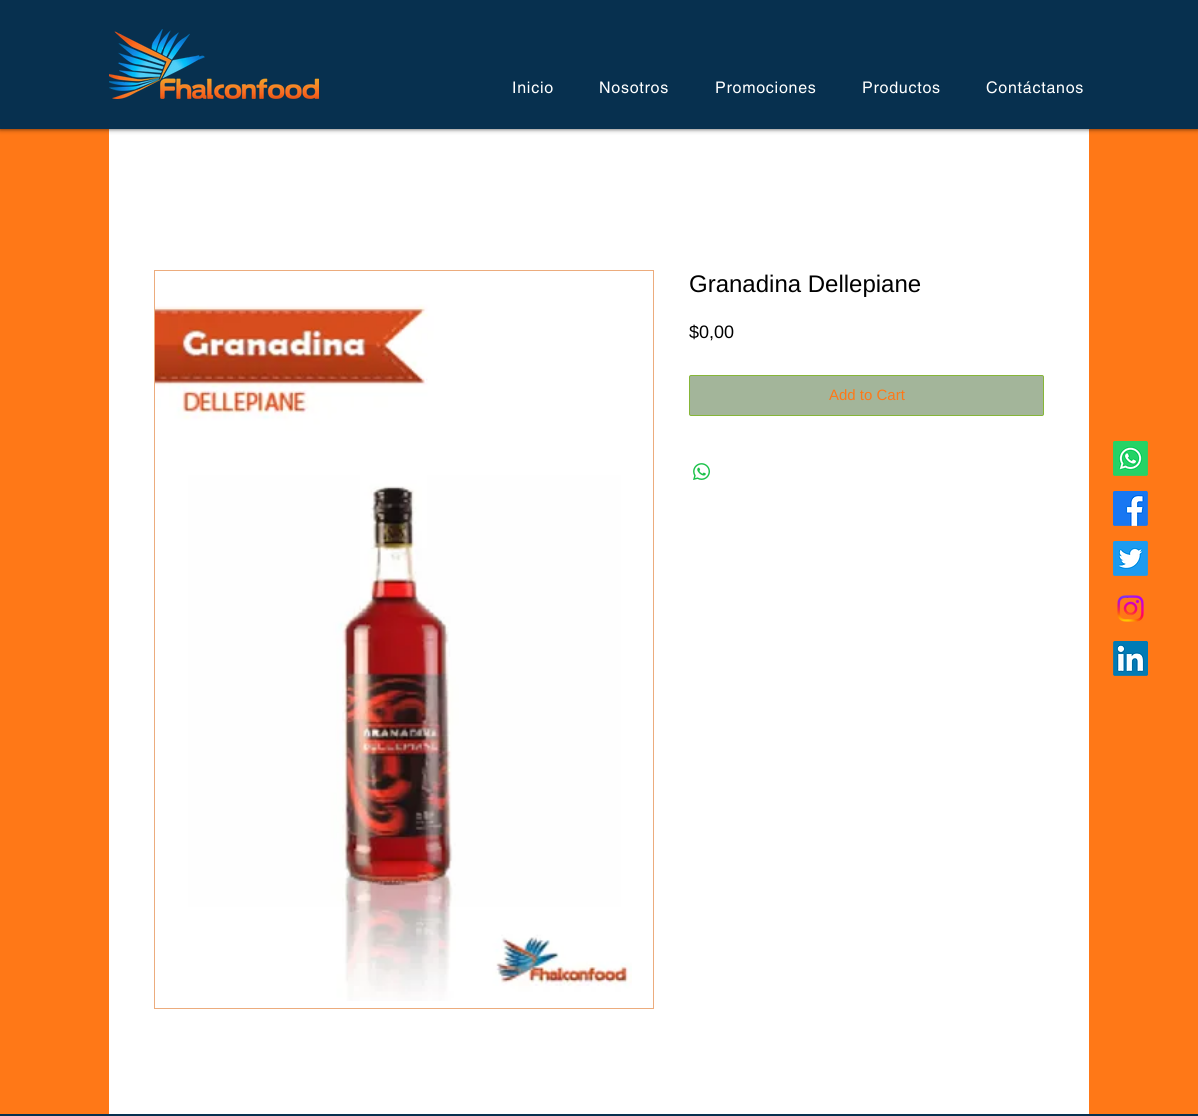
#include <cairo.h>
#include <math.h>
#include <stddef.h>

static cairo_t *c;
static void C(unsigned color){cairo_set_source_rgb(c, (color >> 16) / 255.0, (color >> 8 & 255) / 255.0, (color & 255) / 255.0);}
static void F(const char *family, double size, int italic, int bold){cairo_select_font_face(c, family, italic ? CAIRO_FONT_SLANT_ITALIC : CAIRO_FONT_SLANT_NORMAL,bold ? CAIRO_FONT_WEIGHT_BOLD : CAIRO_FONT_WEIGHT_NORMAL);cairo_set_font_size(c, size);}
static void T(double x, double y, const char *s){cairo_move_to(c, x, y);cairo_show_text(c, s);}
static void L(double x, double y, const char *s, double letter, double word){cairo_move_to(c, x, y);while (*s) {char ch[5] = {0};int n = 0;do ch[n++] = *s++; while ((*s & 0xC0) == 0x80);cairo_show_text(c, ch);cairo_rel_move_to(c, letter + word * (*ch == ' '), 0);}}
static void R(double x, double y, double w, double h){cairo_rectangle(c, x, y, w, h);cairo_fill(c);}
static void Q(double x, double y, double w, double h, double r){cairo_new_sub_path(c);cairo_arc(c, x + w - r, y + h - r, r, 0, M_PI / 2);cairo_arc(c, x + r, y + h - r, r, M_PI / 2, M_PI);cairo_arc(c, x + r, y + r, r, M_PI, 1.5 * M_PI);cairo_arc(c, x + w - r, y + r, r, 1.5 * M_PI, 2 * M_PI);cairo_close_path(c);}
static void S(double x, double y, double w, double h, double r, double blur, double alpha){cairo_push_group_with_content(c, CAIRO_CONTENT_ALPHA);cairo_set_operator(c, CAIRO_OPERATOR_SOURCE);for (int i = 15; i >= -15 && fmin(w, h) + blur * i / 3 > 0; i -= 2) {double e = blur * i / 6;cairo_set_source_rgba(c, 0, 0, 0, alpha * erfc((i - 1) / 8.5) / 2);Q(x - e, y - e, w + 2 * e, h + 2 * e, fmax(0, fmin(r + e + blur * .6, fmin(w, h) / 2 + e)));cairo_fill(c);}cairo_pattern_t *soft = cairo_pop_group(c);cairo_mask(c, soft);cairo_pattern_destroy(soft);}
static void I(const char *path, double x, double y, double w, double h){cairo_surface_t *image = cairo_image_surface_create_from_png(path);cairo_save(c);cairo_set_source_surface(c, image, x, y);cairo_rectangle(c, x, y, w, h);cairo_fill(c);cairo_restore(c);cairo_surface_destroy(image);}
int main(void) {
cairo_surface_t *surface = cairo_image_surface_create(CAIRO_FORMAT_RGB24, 1198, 1116);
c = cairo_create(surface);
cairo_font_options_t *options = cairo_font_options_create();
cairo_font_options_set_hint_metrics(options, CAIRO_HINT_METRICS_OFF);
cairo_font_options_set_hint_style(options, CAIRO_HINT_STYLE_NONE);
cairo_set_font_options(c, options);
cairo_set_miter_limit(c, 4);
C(0xff7817);
cairo_paint(c);
C(0xffffff);
R(109,129,980,985);
C(0x000000);
S(0,0,1198,129,0,2.5,.7);
C(0x07304f);
R(0,0,1198,129);
I("1.png",109,29,210,70);
F("helvetica",16,0,0);
C(0xffffff);
L(512,93,"Inicio",.75,0);
L(599,93,"Nosotros",.75,0);
L(715,93,"Promociones",.75,0);
L(862,93,"Productos",.75,0);
L(986,93,"Contáctanos",.75,0);
cairo_rectangle(c,154.5,270.5,499,738);
C(0xecac7d);
cairo_set_line_width(c,1);
cairo_stroke(c);
I("2.png",155,304,477,697);
F("Liberation Sans",24,0,0);
C(0x000000);
T(689,292,"Granadina Dellepiane");
F("Liberation Sans",18,0,0);
T(689,338,"$0,00");
C(0xa3b59a);
Q(689.5,375.5,354,40,1.5);
cairo_fill_preserve(c);
C(0x86b638);
cairo_stroke(c);
F("Liberation Sans",15,0,0);
C(0xff7817);
T(829,400,"Add to Cart");
I("3.png",693,463,17,17);
I("4.png",1113,441,35,35);
I("5.png",1113,491,35,35);
I("6.png",1113,541,35,35);
I("7.png",1117,595,27,27);
I("8.png",1113,641,35,35);
C(0x07304f);
R(0,1114,1198,2);
cairo_surface_write_to_png(surface, "o.png");
cairo_font_options_destroy(options);
cairo_destroy(c);
cairo_surface_destroy(surface);
return 0;
}
